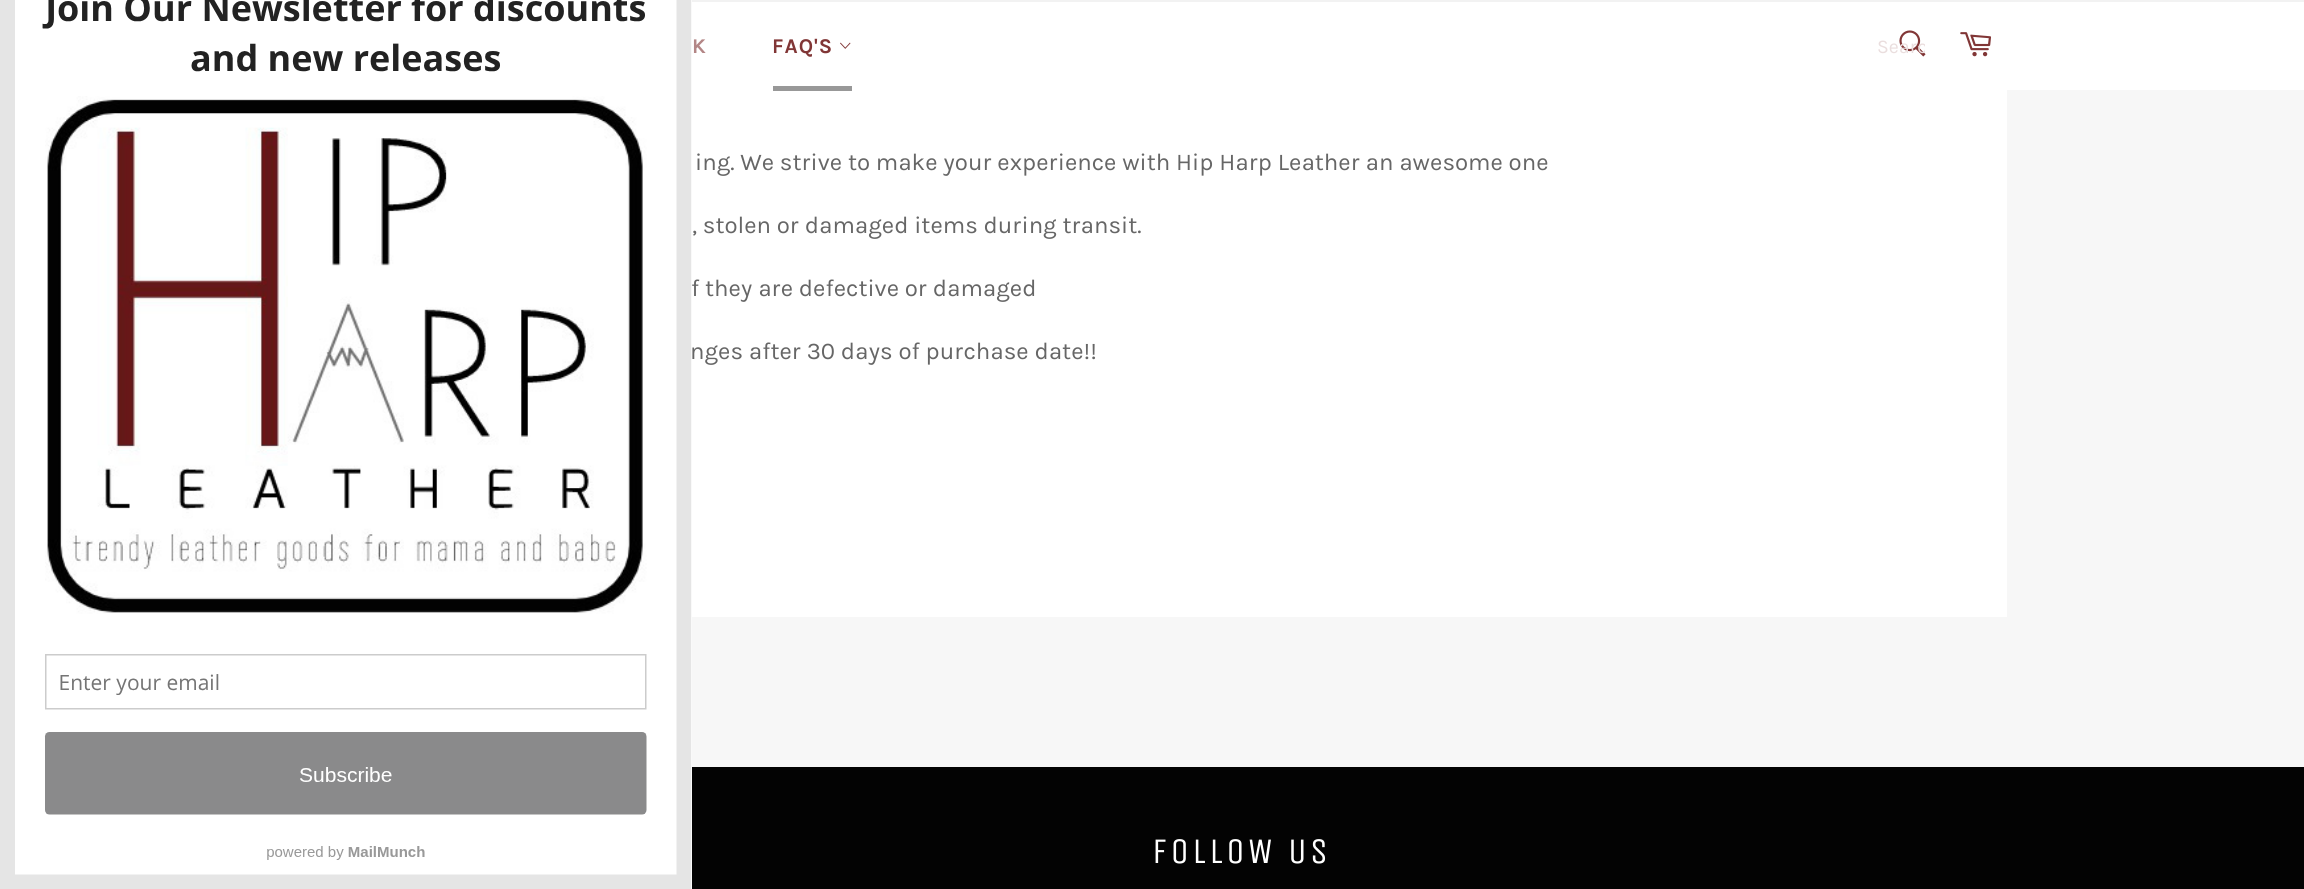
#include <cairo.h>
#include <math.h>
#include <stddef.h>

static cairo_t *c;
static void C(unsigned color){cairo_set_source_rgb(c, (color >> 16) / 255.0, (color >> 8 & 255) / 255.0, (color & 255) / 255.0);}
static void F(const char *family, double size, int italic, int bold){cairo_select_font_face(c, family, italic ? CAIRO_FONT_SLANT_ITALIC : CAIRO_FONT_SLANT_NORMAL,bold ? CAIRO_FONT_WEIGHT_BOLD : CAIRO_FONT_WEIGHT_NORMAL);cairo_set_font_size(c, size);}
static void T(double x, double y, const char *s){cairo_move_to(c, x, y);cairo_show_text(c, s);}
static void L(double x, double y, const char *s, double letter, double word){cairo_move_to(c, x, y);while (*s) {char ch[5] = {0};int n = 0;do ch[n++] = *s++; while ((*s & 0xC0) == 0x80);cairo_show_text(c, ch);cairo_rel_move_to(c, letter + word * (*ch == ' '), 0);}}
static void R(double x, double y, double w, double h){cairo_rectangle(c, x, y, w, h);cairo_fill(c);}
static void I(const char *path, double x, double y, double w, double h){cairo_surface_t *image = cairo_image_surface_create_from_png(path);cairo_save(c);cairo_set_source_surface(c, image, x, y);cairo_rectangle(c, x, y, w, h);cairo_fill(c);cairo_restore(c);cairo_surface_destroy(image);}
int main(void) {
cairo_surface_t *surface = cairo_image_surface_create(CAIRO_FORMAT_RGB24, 2304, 889);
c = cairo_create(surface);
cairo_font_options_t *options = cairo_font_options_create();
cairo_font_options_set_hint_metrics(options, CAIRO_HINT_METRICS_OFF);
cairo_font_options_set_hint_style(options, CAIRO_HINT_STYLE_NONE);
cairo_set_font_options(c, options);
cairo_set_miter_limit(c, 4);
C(0xf7f7f7);
cairo_paint(c);
C(0xffffff);
R(692,90,1315,527);
F("Karla",24,0,0);
C(0x666666);
T(691,296,"f they are defective or damaged");
I("1.png",0,0,692,889);
C(0xffffff);
R(692,2,1612,88);
C(0xf2f2f2);
R(692,0,1612,2);
F("Karla",21,0,1);
C(0xb38686);
L(692,53,"K",1,0);
C(0x813636);
L(772,53,"FAQ'S",1,0);
I("2.png",840,42,11,7);
C(0x989898);
R(773,86,79,5);
I("3.png",1899,30,27,27);
cairo_save(c);
cairo_rectangle(c,1877,35,48,22);
cairo_clip(c);
F("Karla",19.5,0,0);
C(0xeadede);
T(1877,53,"Searc");
cairo_restore(c);
I("4.png",1960,32,31,25);
F("Karla",24,0,0);
C(0x666666);
T(695,170,"ing. We strive to make your experience with Hip Harp Leather an awesome one");
T(692,233,", stolen or damaged items during transit.");
T(690,359,"nges after 30 days of purchase date!!");
C(0x030303);
R(692,767,1612,122);
F("Unica One",36,0,0);
C(0xffffff);
L(1152,863,"FOLLOW US",3.5,0);
cairo_surface_write_to_png(surface, "o.png");
cairo_font_options_destroy(options);
cairo_destroy(c);
cairo_surface_destroy(surface);
return 0;
}
